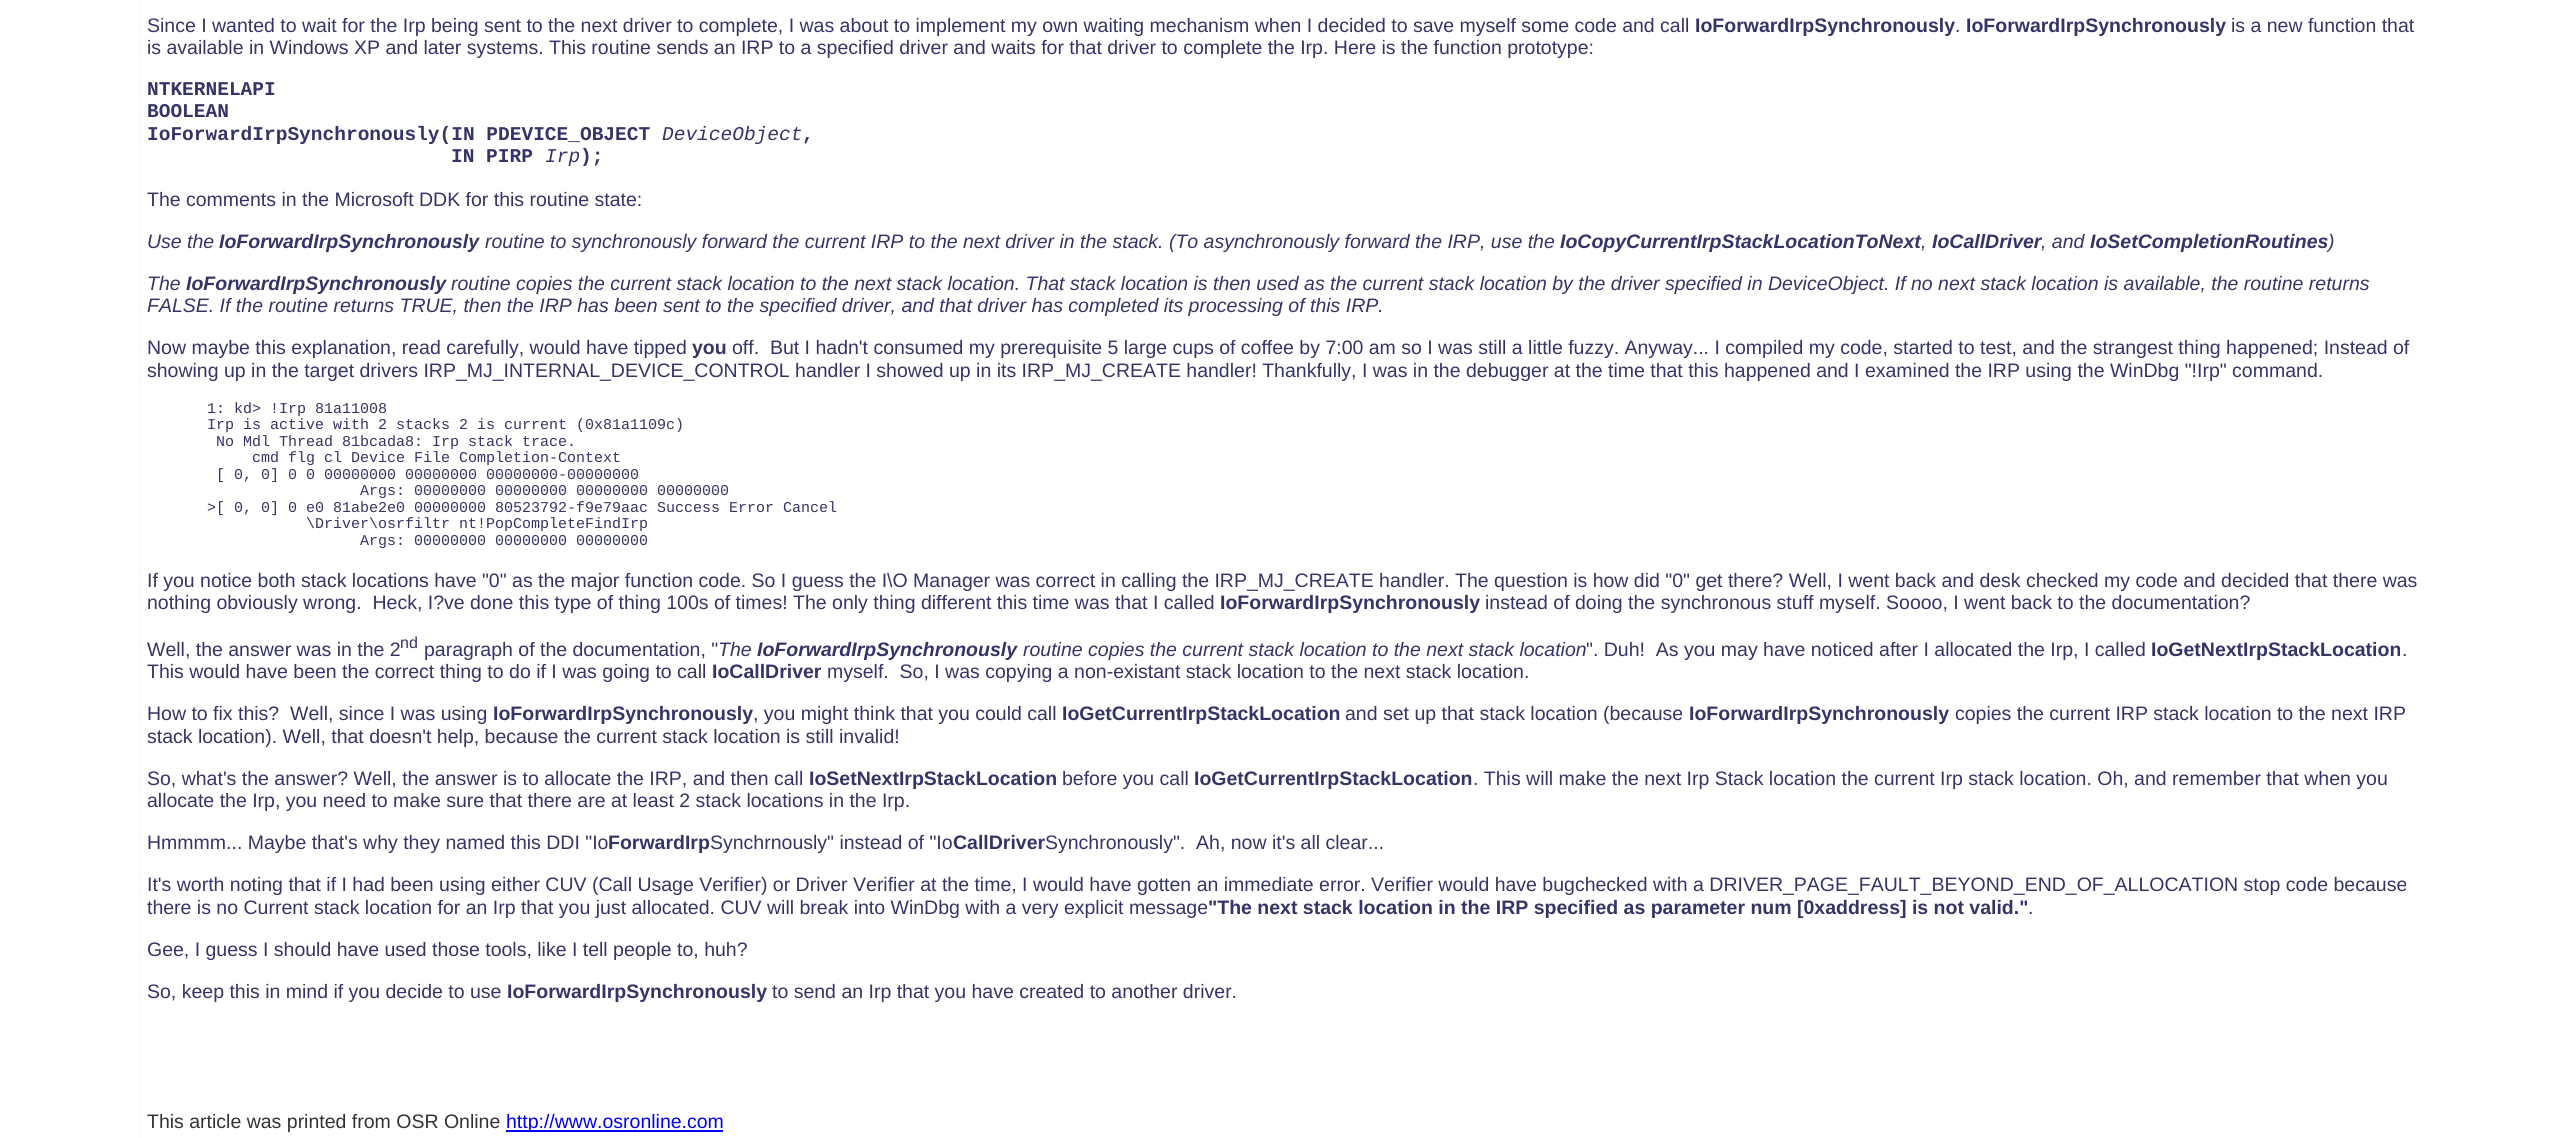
#include <cairo.h>
#include <math.h>
#include <stddef.h>

static cairo_t *c;
static void C(unsigned color){cairo_set_source_rgb(c, (color >> 16) / 255.0, (color >> 8 & 255) / 255.0, (color & 255) / 255.0);}
static void F(const char *family, double size, int italic, int bold){cairo_select_font_face(c, family, italic ? CAIRO_FONT_SLANT_ITALIC : CAIRO_FONT_SLANT_NORMAL,bold ? CAIRO_FONT_WEIGHT_BOLD : CAIRO_FONT_WEIGHT_NORMAL);cairo_set_font_size(c, size);}
static void T(double x, double y, const char *s){cairo_move_to(c, x, y);cairo_show_text(c, s);}
static void R(double x, double y, double w, double h){cairo_rectangle(c, x, y, w, h);cairo_fill(c);}
static void I(const char *path, double x, double y, double w, double h){cairo_surface_t *image = cairo_image_surface_create_from_png(path);cairo_save(c);cairo_set_source_surface(c, image, x, y);cairo_rectangle(c, x, y, w, h);cairo_fill(c);cairo_restore(c);cairo_surface_destroy(image);}
int main(void) {
cairo_surface_t *surface = cairo_image_surface_create(CAIRO_FORMAT_RGB24, 2570, 1138);
c = cairo_create(surface);
cairo_font_options_t *options = cairo_font_options_create();
cairo_font_options_set_hint_metrics(options, CAIRO_HINT_METRICS_OFF);
cairo_font_options_set_hint_style(options, CAIRO_HINT_STYLE_NONE);
cairo_set_font_options(c, options);
cairo_set_miter_limit(c, 4);
C(0xffffff);
cairo_paint(c);
I("1.png",139,0,1,1138);
cairo_set_source_rgba(c,0.922,1,0.796,0.5);
R(139,0,1,1138);
F("Liberation Sans",19.5,0,0);
C(0x363466);
T(147,32,"Since I wanted to wait for the Irp being sent to the next driver to complete, I was about to implement my own waiting mechanism when I decided to save myself some code and call");
F("Liberation Sans",19.5,0,1);
T(1695,32,"IoForwardIrpSynchronously");
F("Liberation Sans",19.5,0,0);
T(1955,32,".");
F("Liberation Sans",19.5,0,1);
T(1966,32,"IoForwardIrpSynchronously");
F("Liberation Sans",19.5,0,0);
T(2231,32,"is a new function that");
T(147,54,"is available in Windows XP and later systems. This routine sends an IRP to a specified driver and waits for that driver to complete the Irp. Here is the function prototype:");
F("Liberation Mono",19.5,0,1);
T(147,95,"NTKERNELAPI");
T(147,117,"BOOLEAN");
T(147,140,"IoForwardIrpSynchronously(IN PDEVICE_OBJECT");
F("Liberation Mono",19.5,1,0);
T(662,140,"DeviceObject");
F("Liberation Mono",19.5,0,1);
T(802,140,",");
T(451,162,"IN PIRP");
F("Liberation Mono",19.5,1,0);
T(545,162,"Irp");
F("Liberation Mono",19.5,0,1);
T(580,162,");");
F("Liberation Sans",19.5,0,0);
T(147,206,"The comments in the Microsoft DDK for this routine state:");
F("Liberation Sans",19.5,1,0);
T(147,248,"Use the");
F("Liberation Sans",19.5,1,1);
T(219,248,"IoForwardIrpSynchronously");
F("Liberation Sans",19.5,1,0);
T(485,248,"routine to synchronously forward the current IRP to the next driver in the stack. (To asynchronously forward the IRP, use the");
F("Liberation Sans",19.5,1,1);
T(1560,248,"IoCopyCurrentIrpStackLocationToNext");
F("Liberation Sans",19.5,1,0);
T(1921,248,",");
F("Liberation Sans",19.5,1,1);
T(1932,248,"IoCallDriver");
F("Liberation Sans",19.5,1,0);
T(2041,248,", and");
F("Liberation Sans",19.5,1,1);
T(2090,248,"IoSetCompletionRoutines");
F("Liberation Sans",19.5,1,0);
T(2328,248,")");
T(147,290,"The");
F("Liberation Sans",19.5,1,1);
T(186,290,"IoForwardIrpSynchronously");
F("Liberation Sans",19.5,1,0);
T(451,290,"routine copies the current stack location to the next stack location. That stack location is then used as the current stack location by the driver specified in DeviceObject. If no next stack location is available, the routine returns");
T(147,312,"FALSE. If the routine returns TRUE, then the IRP has been sent to the specified driver, and that driver has completed its processing of this IRP.");
F("Liberation Sans",19.5,0,0);
T(147,354,"Now maybe this explanation, read carefully, would have tipped");
F("Liberation Sans",19.5,0,1);
T(692,354,"you");
F("Liberation Sans",19.5,0,0);
T(732,354,"off.  But I hadn't consumed my prerequisite 5 large cups of coffee by 7:00 am so I was still a little fuzzy. Anyway... I compiled my code, started to test, and the strangest thing happened; Instead of");
T(147,377,"showing up in the target drivers IRP_MJ_INTERNAL_DEVICE_CONTROL handler I showed up in its IRP_MJ_CREATE handler! Thankfully, I was in the debugger at the time that this happened and I examined the IRP using the WinDbg \"!Irp\" command.");
F("Liberation Mono",15,0,0);
T(207,413,"1: kd> !Irp 81a11008");
T(207,429,"Irp is active with 2 stacks 2 is current (0x81a1109c)");
T(216,446,"No Mdl Thread 81bcada8: Irp stack trace.");
T(252,462,"cmd flg cl Device File Completion-Context");
T(216,479,"[ 0, 0] 0 0 00000000 00000000 00000000-00000000");
T(360,495,"Args: 00000000 00000000 00000000 00000000");
T(207,512,">[ 0, 0] 0 e0 81abe2e0 00000000 80523792-f9e79aac Success Error Cancel");
T(306,528,"\\Driver\\osrfiltr nt!PopCompleteFindIrp");
T(360,545,"Args: 00000000 00000000 00000000");
F("Liberation Sans",19.5,0,0);
T(147,587,"If you notice both stack locations have \"0\" as the major function code. So I guess the I\\O Manager was correct in calling the IRP_MJ_CREATE handler. The question is how did \"0\" get there? Well, I went back and desk checked my code and decided that there was");
T(147,609,"nothing obviously wrong.  Heck, I?ve done this type of thing 100s of times! The only thing different this time was that I called");
F("Liberation Sans",19.5,0,1);
T(1220,609,"IoForwardIrpSynchronously");
F("Liberation Sans",19.5,0,0);
T(1485,609,"instead of doing the synchronous stuff myself. Soooo, I went back to the documentation?");
T(147,656,"Well, the answer was in the 2");
F("Liberation Sans",16,0,0);
T(400,648,"nd");
F("Liberation Sans",19.5,0,0);
T(424,656,"paragraph of the documentation, \"");
F("Liberation Sans",19.5,1,0);
T(718,656,"The");
F("Liberation Sans",19.5,1,1);
T(757,656,"IoForwardIrpSynchronously");
F("Liberation Sans",19.5,1,0);
T(1023,656,"routine copies the current stack location to the next stack location");
F("Liberation Sans",19.5,0,0);
T(1586,656,"\". Duh!  As you may have noticed after I allocated the Irp, I called");
F("Liberation Sans",19.5,0,1);
T(2151,656,"IoGetNextIrpStackLocation");
F("Liberation Sans",19.5,0,0);
T(2402,656,".");
T(147,678,"This would have been the correct thing to do if I was going to call");
F("Liberation Sans",19.5,0,1);
T(712,678,"IoCallDriver");
F("Liberation Sans",19.5,0,0);
T(827,678,"myself.  So, I was copying a non-existant stack location to the next stack location.");
T(147,720,"How to fix this?  Well, since I was using");
F("Liberation Sans",19.5,0,1);
T(493,720,"IoForwardIrpSynchronously");
F("Liberation Sans",19.5,0,0);
T(753,720,", you might think that you could call");
F("Liberation Sans",19.5,0,1);
T(1062,720,"IoGetCurrentIrpStackLocation");
F("Liberation Sans",19.5,0,0);
T(1345,720,"and set up that stack location (because");
F("Liberation Sans",19.5,0,1);
T(1689,720,"IoForwardIrpSynchronously");
F("Liberation Sans",19.5,0,0);
T(1955,720,"copies the current IRP stack location to the next IRP");
T(147,743,"stack location). Well, that doesn't help, because the current stack location is still invalid!");
T(147,785,"So, what's the answer? Well, the answer is to allocate the IRP, and then call");
F("Liberation Sans",19.5,0,1);
T(809,785,"IoSetNextIrpStackLocation");
F("Liberation Sans",19.5,0,0);
T(1062,785,"before you call");
F("Liberation Sans",19.5,0,1);
T(1194,785,"IoGetCurrentIrpStackLocation");
F("Liberation Sans",19.5,0,0);
T(1473,785,". This will make the next Irp Stack location the current Irp stack location. Oh, and remember that when you");
T(147,807,"allocate the Irp, you need to make sure that there are at least 2 stack locations in the Irp.");
T(147,849,"Hmmmm... Maybe that's why they named this DDI \"Io");
F("Liberation Sans",19.5,0,1);
T(608,849,"ForwardIrp");
F("Liberation Sans",19.5,0,0);
T(710,849,"Synchrnously\" instead of \"Io");
F("Liberation Sans",19.5,0,1);
T(953,849,"CallDriver");
F("Liberation Sans",19.5,0,0);
T(1045,849,"Synchronously\".  Ah, now it's all clear...");
T(147,891,"It's worth noting that if I had been using either CUV (Call Usage Verifier) or Driver Verifier at the time, I would have gotten an immediate error. Verifier would have bugchecked with a DRIVER_PAGE_FAULT_BEYOND_END_OF_ALLOCATION stop code because");
T(147,914,"there is no Current stack location for an Irp that you just allocated. CUV will break into WinDbg with a very explicit message");
F("Liberation Sans",19.5,0,1);
T(1208,914,"\"The next stack location in the IRP specified as parameter num [0xaddress] is not valid.\"");
F("Liberation Sans",19.5,0,0);
T(2028,914,".");
T(147,956,"Gee, I guess I should have used those tools, like I tell people to, huh?");
T(147,998,"So, keep this in mind if you decide to use");
F("Liberation Sans",19.5,0,1);
T(507,998,"IoForwardIrpSynchronously");
F("Liberation Sans",19.5,0,0);
T(772,998,"to send an Irp that you have created to another driver.");
C(0x333333);
T(147,1128,"This article was printed from OSR Online");
C(0x0000ee);
R(506,1130,217,2);
T(506,1128,"http://www.osronline.com");
cairo_surface_write_to_png(surface, "o.png");
cairo_font_options_destroy(options);
cairo_destroy(c);
cairo_surface_destroy(surface);
return 0;
}
